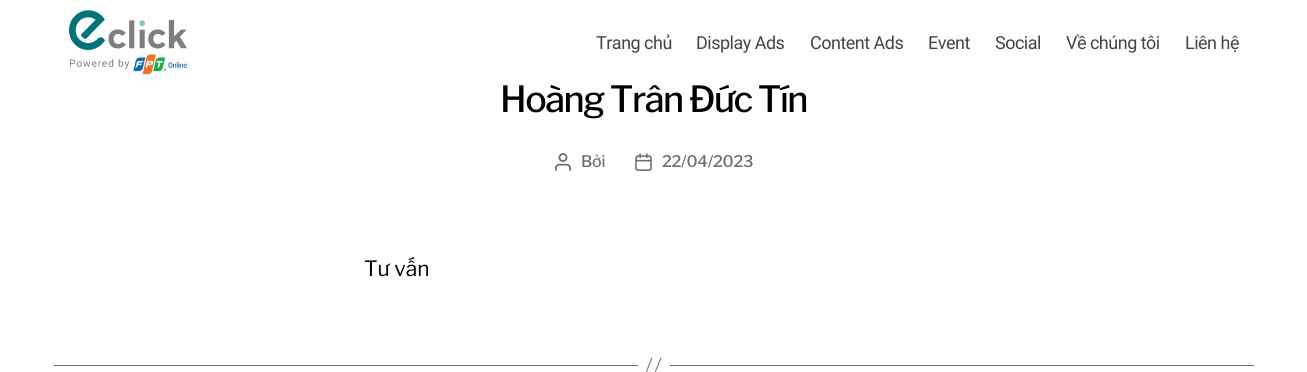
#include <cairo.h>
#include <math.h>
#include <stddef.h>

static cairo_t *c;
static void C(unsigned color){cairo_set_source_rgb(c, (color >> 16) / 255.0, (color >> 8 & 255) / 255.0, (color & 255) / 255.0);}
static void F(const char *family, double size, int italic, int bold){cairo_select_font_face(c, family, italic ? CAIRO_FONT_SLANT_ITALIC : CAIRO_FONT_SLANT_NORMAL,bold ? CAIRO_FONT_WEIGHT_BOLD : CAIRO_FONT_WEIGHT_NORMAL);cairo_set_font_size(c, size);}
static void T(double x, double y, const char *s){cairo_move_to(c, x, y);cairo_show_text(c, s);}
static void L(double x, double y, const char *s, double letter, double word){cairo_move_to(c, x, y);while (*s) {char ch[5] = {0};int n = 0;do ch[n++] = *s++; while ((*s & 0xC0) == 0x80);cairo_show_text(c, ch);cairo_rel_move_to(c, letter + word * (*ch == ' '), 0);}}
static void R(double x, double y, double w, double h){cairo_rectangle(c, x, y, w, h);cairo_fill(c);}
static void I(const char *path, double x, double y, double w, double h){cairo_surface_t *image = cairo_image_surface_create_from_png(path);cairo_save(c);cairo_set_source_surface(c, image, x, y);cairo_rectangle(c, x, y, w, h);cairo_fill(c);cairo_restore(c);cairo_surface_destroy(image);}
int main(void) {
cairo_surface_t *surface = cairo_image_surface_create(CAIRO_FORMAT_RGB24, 1307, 372);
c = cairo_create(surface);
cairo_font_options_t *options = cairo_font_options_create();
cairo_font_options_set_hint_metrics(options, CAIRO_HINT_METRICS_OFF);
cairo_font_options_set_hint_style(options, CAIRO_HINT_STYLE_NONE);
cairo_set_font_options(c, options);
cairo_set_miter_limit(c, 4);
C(0xffffff);
cairo_paint(c);
F("Libre Franklin Medium",36,0,0);
C(0x000000);
L(500,112,"Hoàng Trần Đức Tín",-1.5,0);
C(0xffffff);
R(551,79,238,6);
I("1.png",69,10,118,65);
F("Roboto",18,0,0);
C(0x444444);
L(596,49,"Trang chủ",-.5,0);
L(696,49,"Display Ads",-.5,0);
L(810,49,"Content Ads",-.5,0);
L(928,49,"Event",-.5,0);
L(995,49,"Social",-.5,0);
L(1066,49,"Về chúng tôi",-.5,0);
L(1185,49,"Liên hệ",-.5,0);
I("2.png",555,153,16,18);
F("Libre Franklin Medium",16,0,0);
C(0x6d6d6d);
L(581,167,"Bởi",-.25,0);
I("3.png",635,153,17,18);
L(662,167,"22/04/2023",-.25,0);
F("Libre Franklin",21,0,0);
C(0x000000);
T(364,276,"Tư vấn");
C(0x6d6d6d);
R(670,365,584,1);
R(54,365,584,1);
cairo_new_path(c);
cairo_move_to(c,651.5,357.5);
cairo_line_to(c,652.5,358);
cairo_line_to(c,646.5,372.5);
cairo_line_to(c,645.5,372.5);
cairo_close_path(c);
cairo_move_to(c,660.5,357.5);
cairo_line_to(c,661.5,358);
cairo_line_to(c,655.5,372.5);
cairo_line_to(c,654.5,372.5);
cairo_close_path(c);
cairo_fill(c);
cairo_surface_write_to_png(surface, "o.png");
cairo_font_options_destroy(options);
cairo_destroy(c);
cairo_surface_destroy(surface);
return 0;
}
